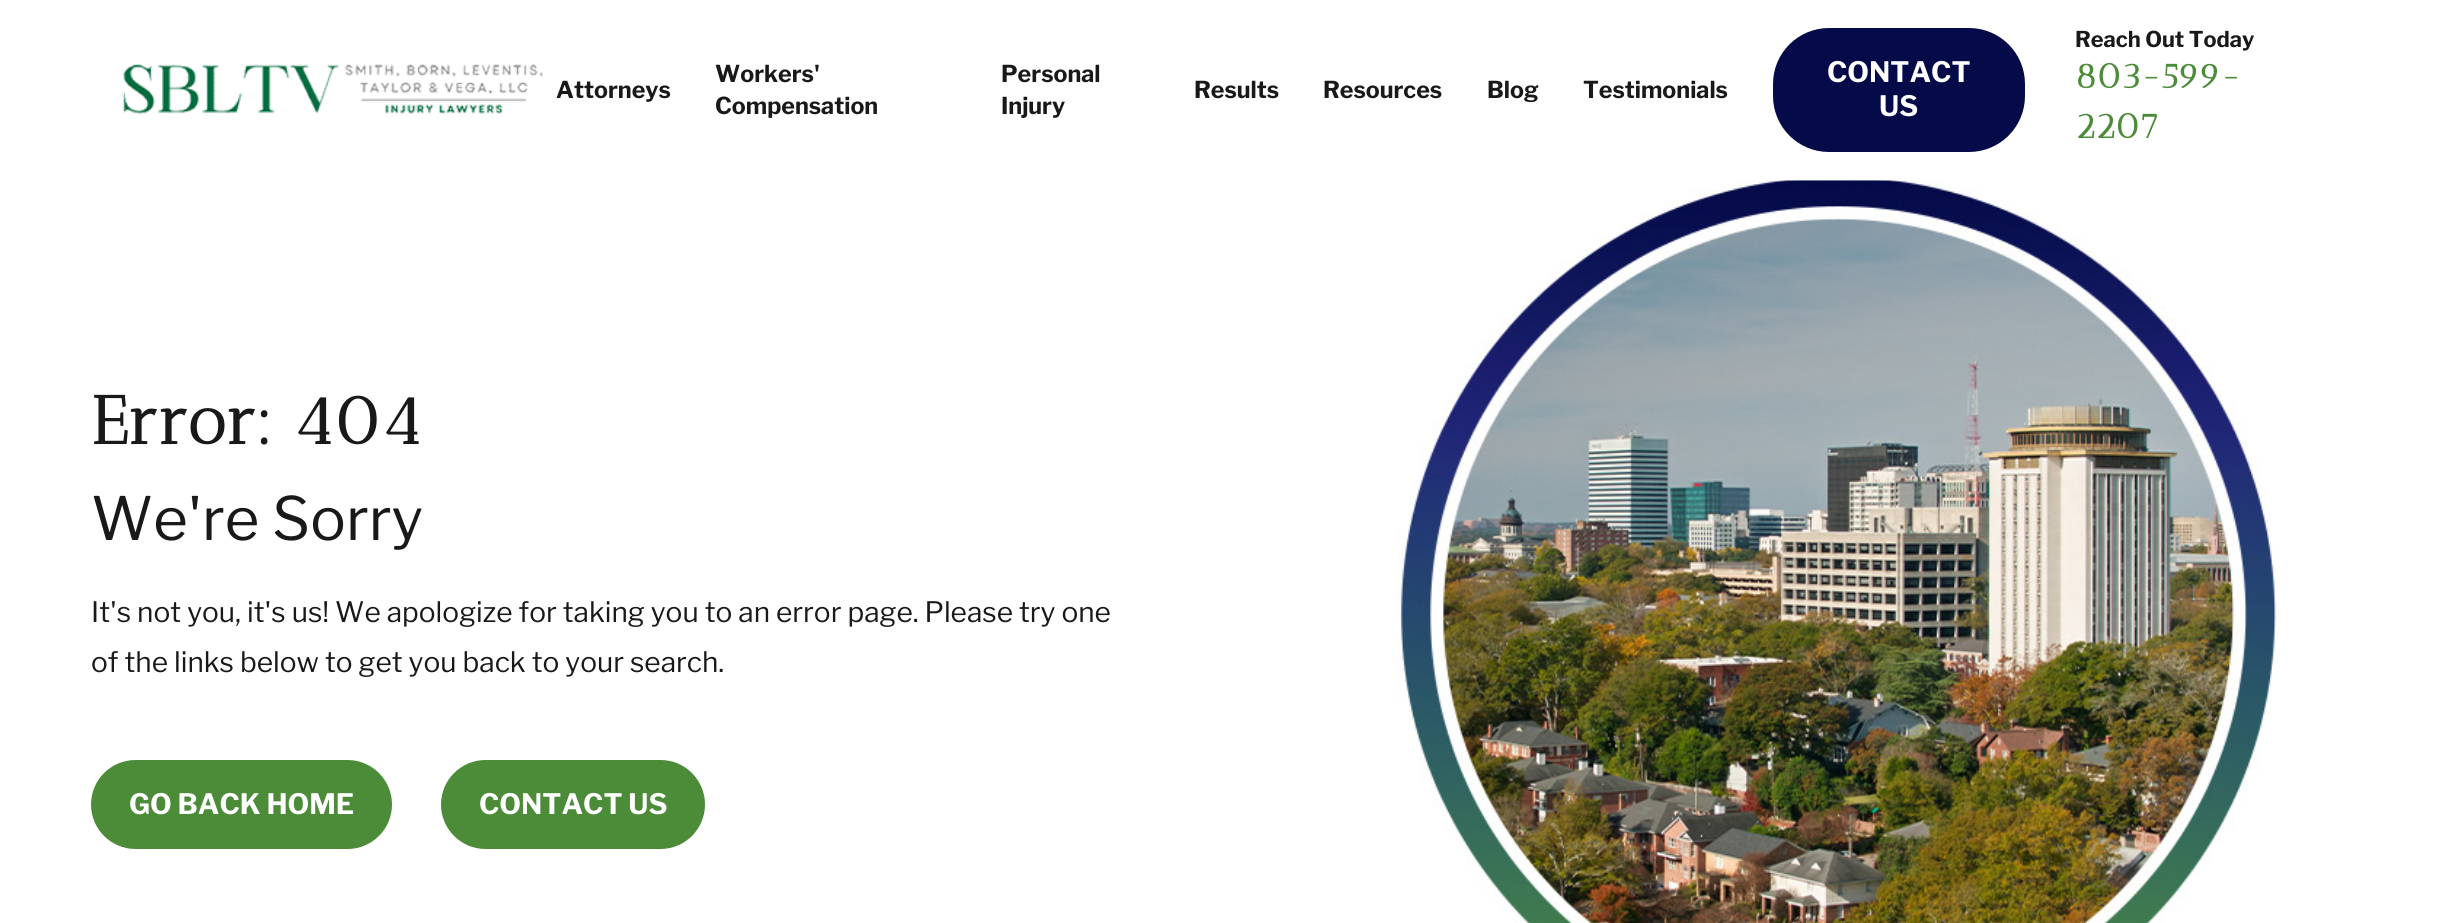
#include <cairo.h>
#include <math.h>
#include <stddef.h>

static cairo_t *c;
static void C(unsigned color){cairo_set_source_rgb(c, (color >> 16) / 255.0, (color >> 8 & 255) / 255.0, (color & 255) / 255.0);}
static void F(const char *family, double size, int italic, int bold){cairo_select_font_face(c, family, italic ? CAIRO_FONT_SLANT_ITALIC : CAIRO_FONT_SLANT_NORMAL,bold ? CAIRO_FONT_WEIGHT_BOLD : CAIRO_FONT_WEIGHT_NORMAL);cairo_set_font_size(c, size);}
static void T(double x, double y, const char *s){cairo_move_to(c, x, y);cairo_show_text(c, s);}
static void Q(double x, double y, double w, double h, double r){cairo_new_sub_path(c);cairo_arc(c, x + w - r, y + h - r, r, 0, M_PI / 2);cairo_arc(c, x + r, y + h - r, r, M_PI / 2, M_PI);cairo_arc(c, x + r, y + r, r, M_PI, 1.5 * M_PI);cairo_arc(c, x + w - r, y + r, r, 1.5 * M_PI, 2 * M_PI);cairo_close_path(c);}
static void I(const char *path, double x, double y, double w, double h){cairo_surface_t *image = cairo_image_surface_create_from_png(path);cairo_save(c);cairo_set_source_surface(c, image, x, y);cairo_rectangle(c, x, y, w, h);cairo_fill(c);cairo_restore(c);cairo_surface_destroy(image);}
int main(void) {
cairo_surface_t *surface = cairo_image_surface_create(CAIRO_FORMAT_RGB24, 2437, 923);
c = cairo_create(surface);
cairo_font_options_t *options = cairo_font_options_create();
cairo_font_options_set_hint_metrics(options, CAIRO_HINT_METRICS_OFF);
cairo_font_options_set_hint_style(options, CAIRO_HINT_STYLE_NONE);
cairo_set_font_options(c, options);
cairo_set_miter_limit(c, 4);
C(0xffffff);
cairo_paint(c);
I("1.png",122,64,421,50);
F("Libre Franklin",23.25,0,1);
C(0x191919);
T(556,98,"Attorneys");
T(715,82,"Workers'");
T(715,114,"Compensation");
T(1001,82,"Personal");
T(1001,114,"Injury");
T(1194,98,"Results");
T(1323,98,"Resources");
T(1487,98,"Blog");
T(1583,98,"Testimonials");
C(0x050a48);
Q(1773,28,252,124,56);
cairo_fill(c);
F("Libre Franklin",28.05,0,1);
C(0xffffff);
T(1827,82,"CONTACT");
T(1879,116,"US");
F("Libre Franklin",21.75,0,1);
C(0x191919);
T(2075,47,"Reach Out Today");
F("Antic Didone",35,0,1);
C(0x4c8c39);
T(2075,88,"803-599-");
T(2075,138,"2207");
F("Antic Didone",67.5,0,1);
C(0x191919);
T(91,444,"Error: 404");
F("Libre Franklin",59.5,0,0);
T(91,540,"We're Sorry");
F("Libre Franklin",28.05,0,0);
T(91,622,"It's not you, it's us! We apologize for taking you to an error page. Please try one");
T(91,672,"of the links below to get you back to your search.");
C(0x4c8c39);
Q(91,760,301,89,44.5);
cairo_fill(c);
F("Libre Franklin",28.05,0,1);
C(0xffffff);
T(129,814,"GO BACK HOME");
C(0x4c8c39);
Q(441,760,264,89,44.5);
cairo_fill(c);
C(0xffffff);
T(479,814,"CONTACT US");
I("2.png",1397,180,883,743);
cairo_surface_write_to_png(surface, "o.png");
cairo_font_options_destroy(options);
cairo_destroy(c);
cairo_surface_destroy(surface);
return 0;
}
